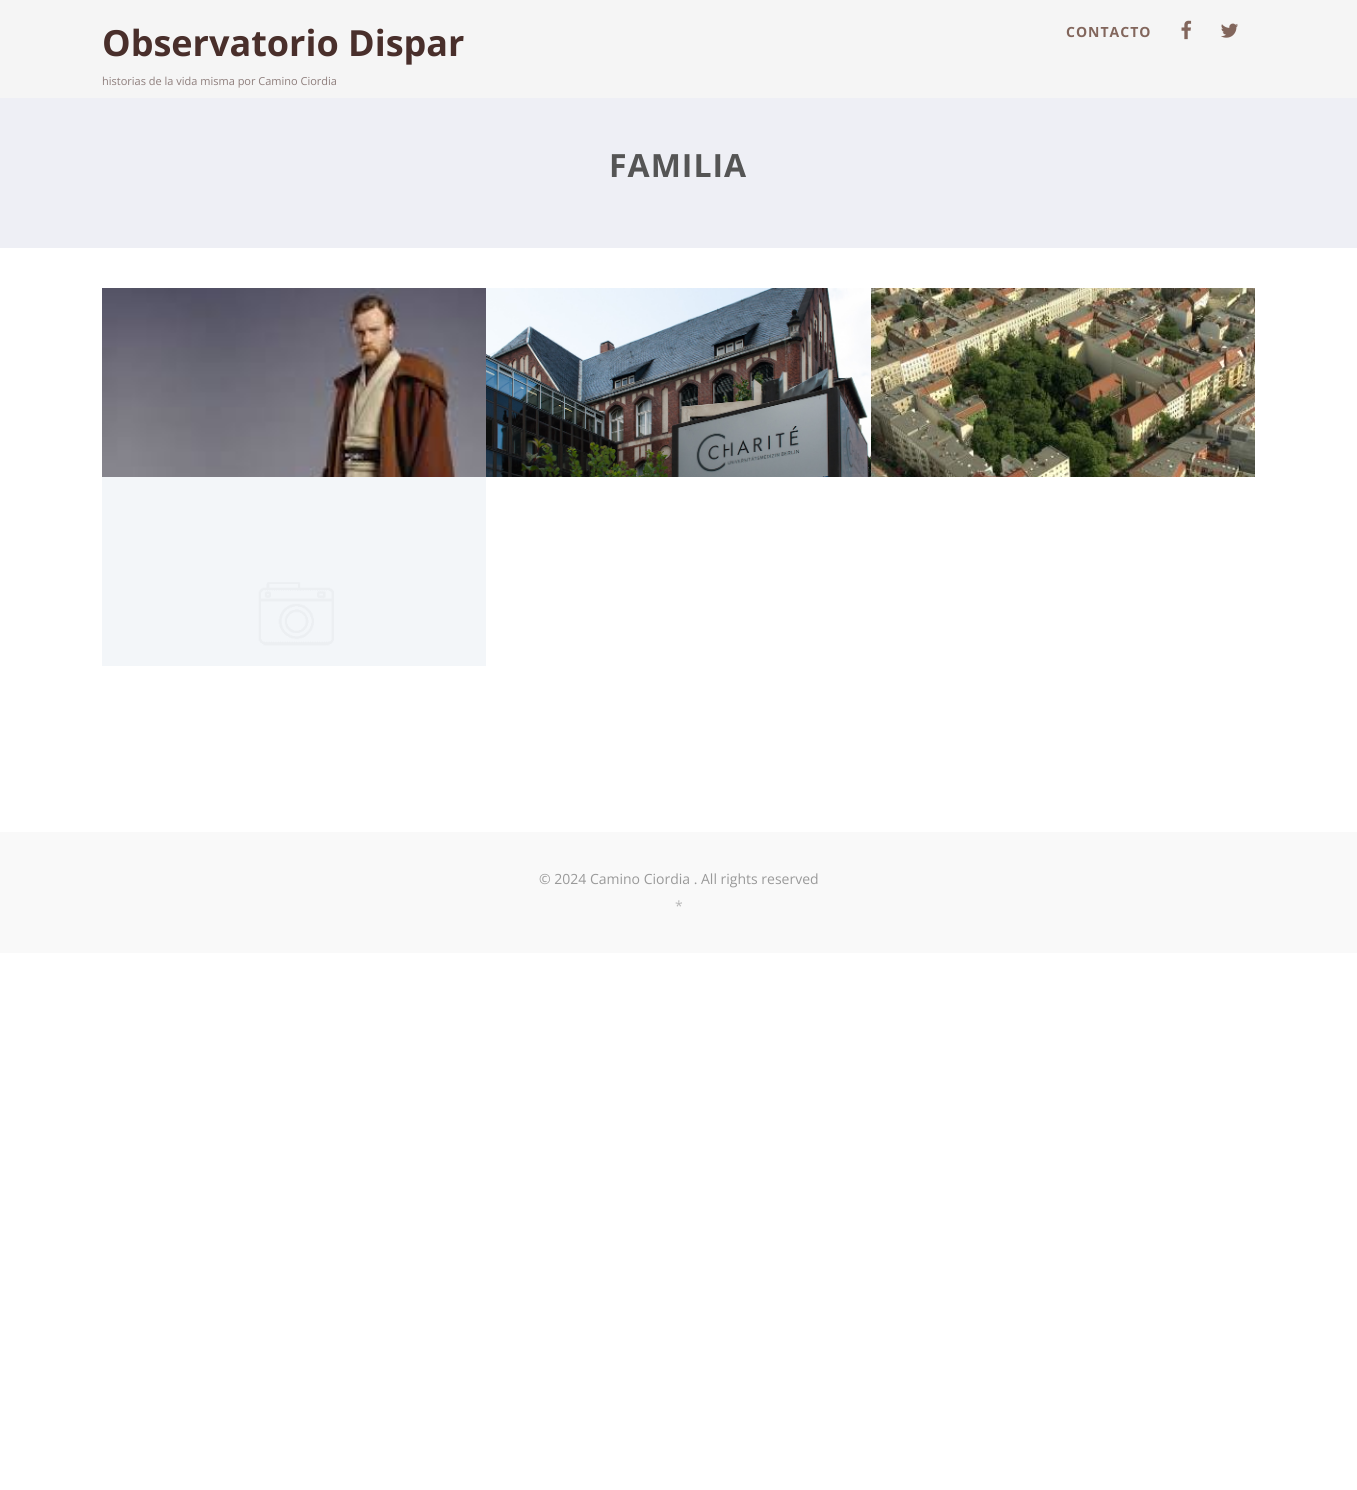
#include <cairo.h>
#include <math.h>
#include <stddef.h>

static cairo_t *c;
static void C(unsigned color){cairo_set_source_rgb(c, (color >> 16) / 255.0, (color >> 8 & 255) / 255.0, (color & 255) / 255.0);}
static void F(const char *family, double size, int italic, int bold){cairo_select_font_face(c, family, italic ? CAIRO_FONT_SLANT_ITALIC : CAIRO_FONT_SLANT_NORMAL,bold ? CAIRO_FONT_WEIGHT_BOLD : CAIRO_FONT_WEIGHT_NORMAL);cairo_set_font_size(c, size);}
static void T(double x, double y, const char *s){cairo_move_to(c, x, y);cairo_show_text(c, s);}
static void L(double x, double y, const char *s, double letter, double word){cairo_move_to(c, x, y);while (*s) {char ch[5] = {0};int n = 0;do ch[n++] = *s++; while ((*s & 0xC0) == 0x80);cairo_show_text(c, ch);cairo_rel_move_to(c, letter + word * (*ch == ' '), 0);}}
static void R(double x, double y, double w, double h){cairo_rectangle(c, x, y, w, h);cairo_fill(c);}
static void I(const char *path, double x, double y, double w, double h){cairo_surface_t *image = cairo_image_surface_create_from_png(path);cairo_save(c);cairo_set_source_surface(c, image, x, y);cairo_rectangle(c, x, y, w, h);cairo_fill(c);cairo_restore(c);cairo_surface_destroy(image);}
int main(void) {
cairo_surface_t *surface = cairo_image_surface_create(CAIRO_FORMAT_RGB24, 1357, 1490);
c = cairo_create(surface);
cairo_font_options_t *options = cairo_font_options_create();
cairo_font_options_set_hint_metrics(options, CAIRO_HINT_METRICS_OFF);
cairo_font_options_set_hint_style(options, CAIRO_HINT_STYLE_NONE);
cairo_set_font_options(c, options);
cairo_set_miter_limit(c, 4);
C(0xffffff);
cairo_paint(c);
C(0xf5f5f5);
R(0,0,1357,98);
F("Open Sans",36,0,1);
C(0x492f2b);
T(102,56,"Observatorio Dispar");
F("Open Sans",11,0,0);
C(0x8e7e7c);
T(102,85,"historias de la vida misma por Camino Ciordia");
F("Open Sans",14,0,1);
C(0x82665c);
L(1066,37,"CONTACTO",1,0);
I("1.png",1181,20,11,20);
I("2.png",1221,23,17,15);
C(0xeeeff5);
R(0,98,1357,150);
F("Open Sans",32,0,1);
C(0x555555);
L(609,177,"FAMILIA",1,0);
I("3.png",102,288,384,189);
I("4.png",486,288,385,189);
I("5.png",871,288,384,189);
I("6.png",102,477,384,189);
C(0xf9f9f9);
R(0,832,1357,121);
F("Open Sans",14,0,0);
C(0x999999);
T(539,884,"© 2024 Camino Ciordia . All rights reserved");
C(0xb6b6b6);
T(675,911,"*");
cairo_surface_write_to_png(surface, "o.png");
cairo_font_options_destroy(options);
cairo_destroy(c);
cairo_surface_destroy(surface);
return 0;
}
